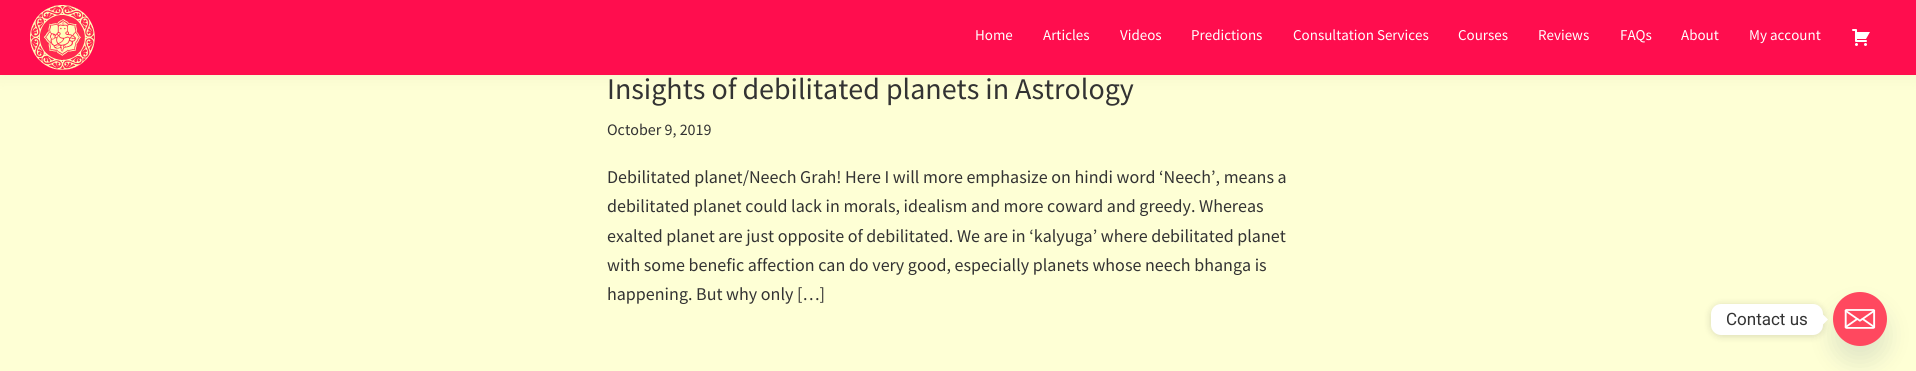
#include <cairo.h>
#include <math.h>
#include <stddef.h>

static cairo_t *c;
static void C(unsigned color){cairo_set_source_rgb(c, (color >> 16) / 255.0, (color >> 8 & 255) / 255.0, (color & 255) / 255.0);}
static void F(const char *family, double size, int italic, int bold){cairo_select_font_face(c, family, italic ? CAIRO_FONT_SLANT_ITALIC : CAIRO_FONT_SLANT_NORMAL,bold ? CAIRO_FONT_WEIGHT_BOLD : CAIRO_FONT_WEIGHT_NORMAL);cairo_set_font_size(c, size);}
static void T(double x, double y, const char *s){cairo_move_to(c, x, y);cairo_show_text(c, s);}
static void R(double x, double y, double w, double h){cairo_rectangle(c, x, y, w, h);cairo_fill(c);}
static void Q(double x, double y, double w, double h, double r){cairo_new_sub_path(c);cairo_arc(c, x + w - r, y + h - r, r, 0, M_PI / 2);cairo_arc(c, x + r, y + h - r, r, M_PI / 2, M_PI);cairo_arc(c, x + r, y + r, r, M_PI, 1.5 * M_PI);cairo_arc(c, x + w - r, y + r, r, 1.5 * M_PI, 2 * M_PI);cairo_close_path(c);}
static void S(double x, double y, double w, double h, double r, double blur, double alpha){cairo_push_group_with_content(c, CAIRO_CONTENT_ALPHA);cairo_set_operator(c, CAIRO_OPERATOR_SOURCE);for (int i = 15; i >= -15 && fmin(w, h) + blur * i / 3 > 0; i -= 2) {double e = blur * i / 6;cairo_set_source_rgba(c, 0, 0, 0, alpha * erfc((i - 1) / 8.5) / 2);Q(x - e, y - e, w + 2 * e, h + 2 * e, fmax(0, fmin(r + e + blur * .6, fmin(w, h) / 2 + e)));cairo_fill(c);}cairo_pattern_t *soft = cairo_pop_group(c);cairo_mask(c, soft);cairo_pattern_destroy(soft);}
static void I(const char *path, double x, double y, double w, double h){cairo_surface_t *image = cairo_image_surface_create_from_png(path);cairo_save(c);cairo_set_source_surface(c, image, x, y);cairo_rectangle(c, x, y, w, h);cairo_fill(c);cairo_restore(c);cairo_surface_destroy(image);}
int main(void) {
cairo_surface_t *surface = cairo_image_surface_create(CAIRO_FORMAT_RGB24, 1916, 371);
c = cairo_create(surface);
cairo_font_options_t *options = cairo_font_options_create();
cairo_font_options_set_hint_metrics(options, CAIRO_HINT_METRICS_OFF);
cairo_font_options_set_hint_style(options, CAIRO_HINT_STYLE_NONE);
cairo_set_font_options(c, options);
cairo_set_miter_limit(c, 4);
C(0xfeffd5);
cairo_paint(c);
C(0x000000);
S(0,0,1916,75,0,10,.05);
C(0xff0d4e);
R(0,0,1916,75);
I("1.png",30,5,65,65);
F("Source Sans Pro",15,0,0);
C(0xffffff);
T(975,40,"Home");
T(1043,40,"Articles");
T(1120,40,"Videos");
T(1191,40,"Predictions");
T(1293,40,"Consultation Services");
T(1458,40,"Courses");
T(1538,40,"Reviews");
T(1620,40,"FAQs");
T(1681,40,"About");
T(1749,40,"My account");
I("2.png",1852,29,18,17);
F("Source Sans Pro",30,0,0);
C(0x333333);
T(607,99,"Insights of debilitated planets in Astrology");
F("Source Sans Pro",16,0,0);
T(607,135,"October 9, 2019");
F("Source Sans Pro",18,0,0);
T(607,183,"Debilitated planet/Neech Grah! Here I will more emphasize on hindi word ‘Neech’, means a");
T(607,212,"debilitated planet could lack in morals, idealism and more coward and greedy. Whereas");
T(607,242,"exalted planet are just opposite of debilitated. We are in ‘kalyuga’ where debilitated planet");
T(607,271,"with some benefic affection can do very good, especially planets whose neech bhanga is");
T(607,300,"happening. But why only […]");
C(0x49687e);
S(1833,308,54,54,27,12,.16);
I("3.png",1833,292,54,54);
C(0x000000);
S(1711,305,112,31,10,4,.15);
C(0xffffff);
Q(1711,304,112,31,10);
cairo_fill(c);
F("Roboto",17,0,0);
C(0x333333);
T(1726,325,"Contact us");
C(0xffffff);
cairo_new_path(c);
cairo_move_to(c,1823,324.5);
cairo_line_to(c,1823,314.5);
cairo_line_to(c,1828,319.5);
cairo_close_path(c);
cairo_fill(c);
cairo_surface_write_to_png(surface, "o.png");
cairo_font_options_destroy(options);
cairo_destroy(c);
cairo_surface_destroy(surface);
return 0;
}
